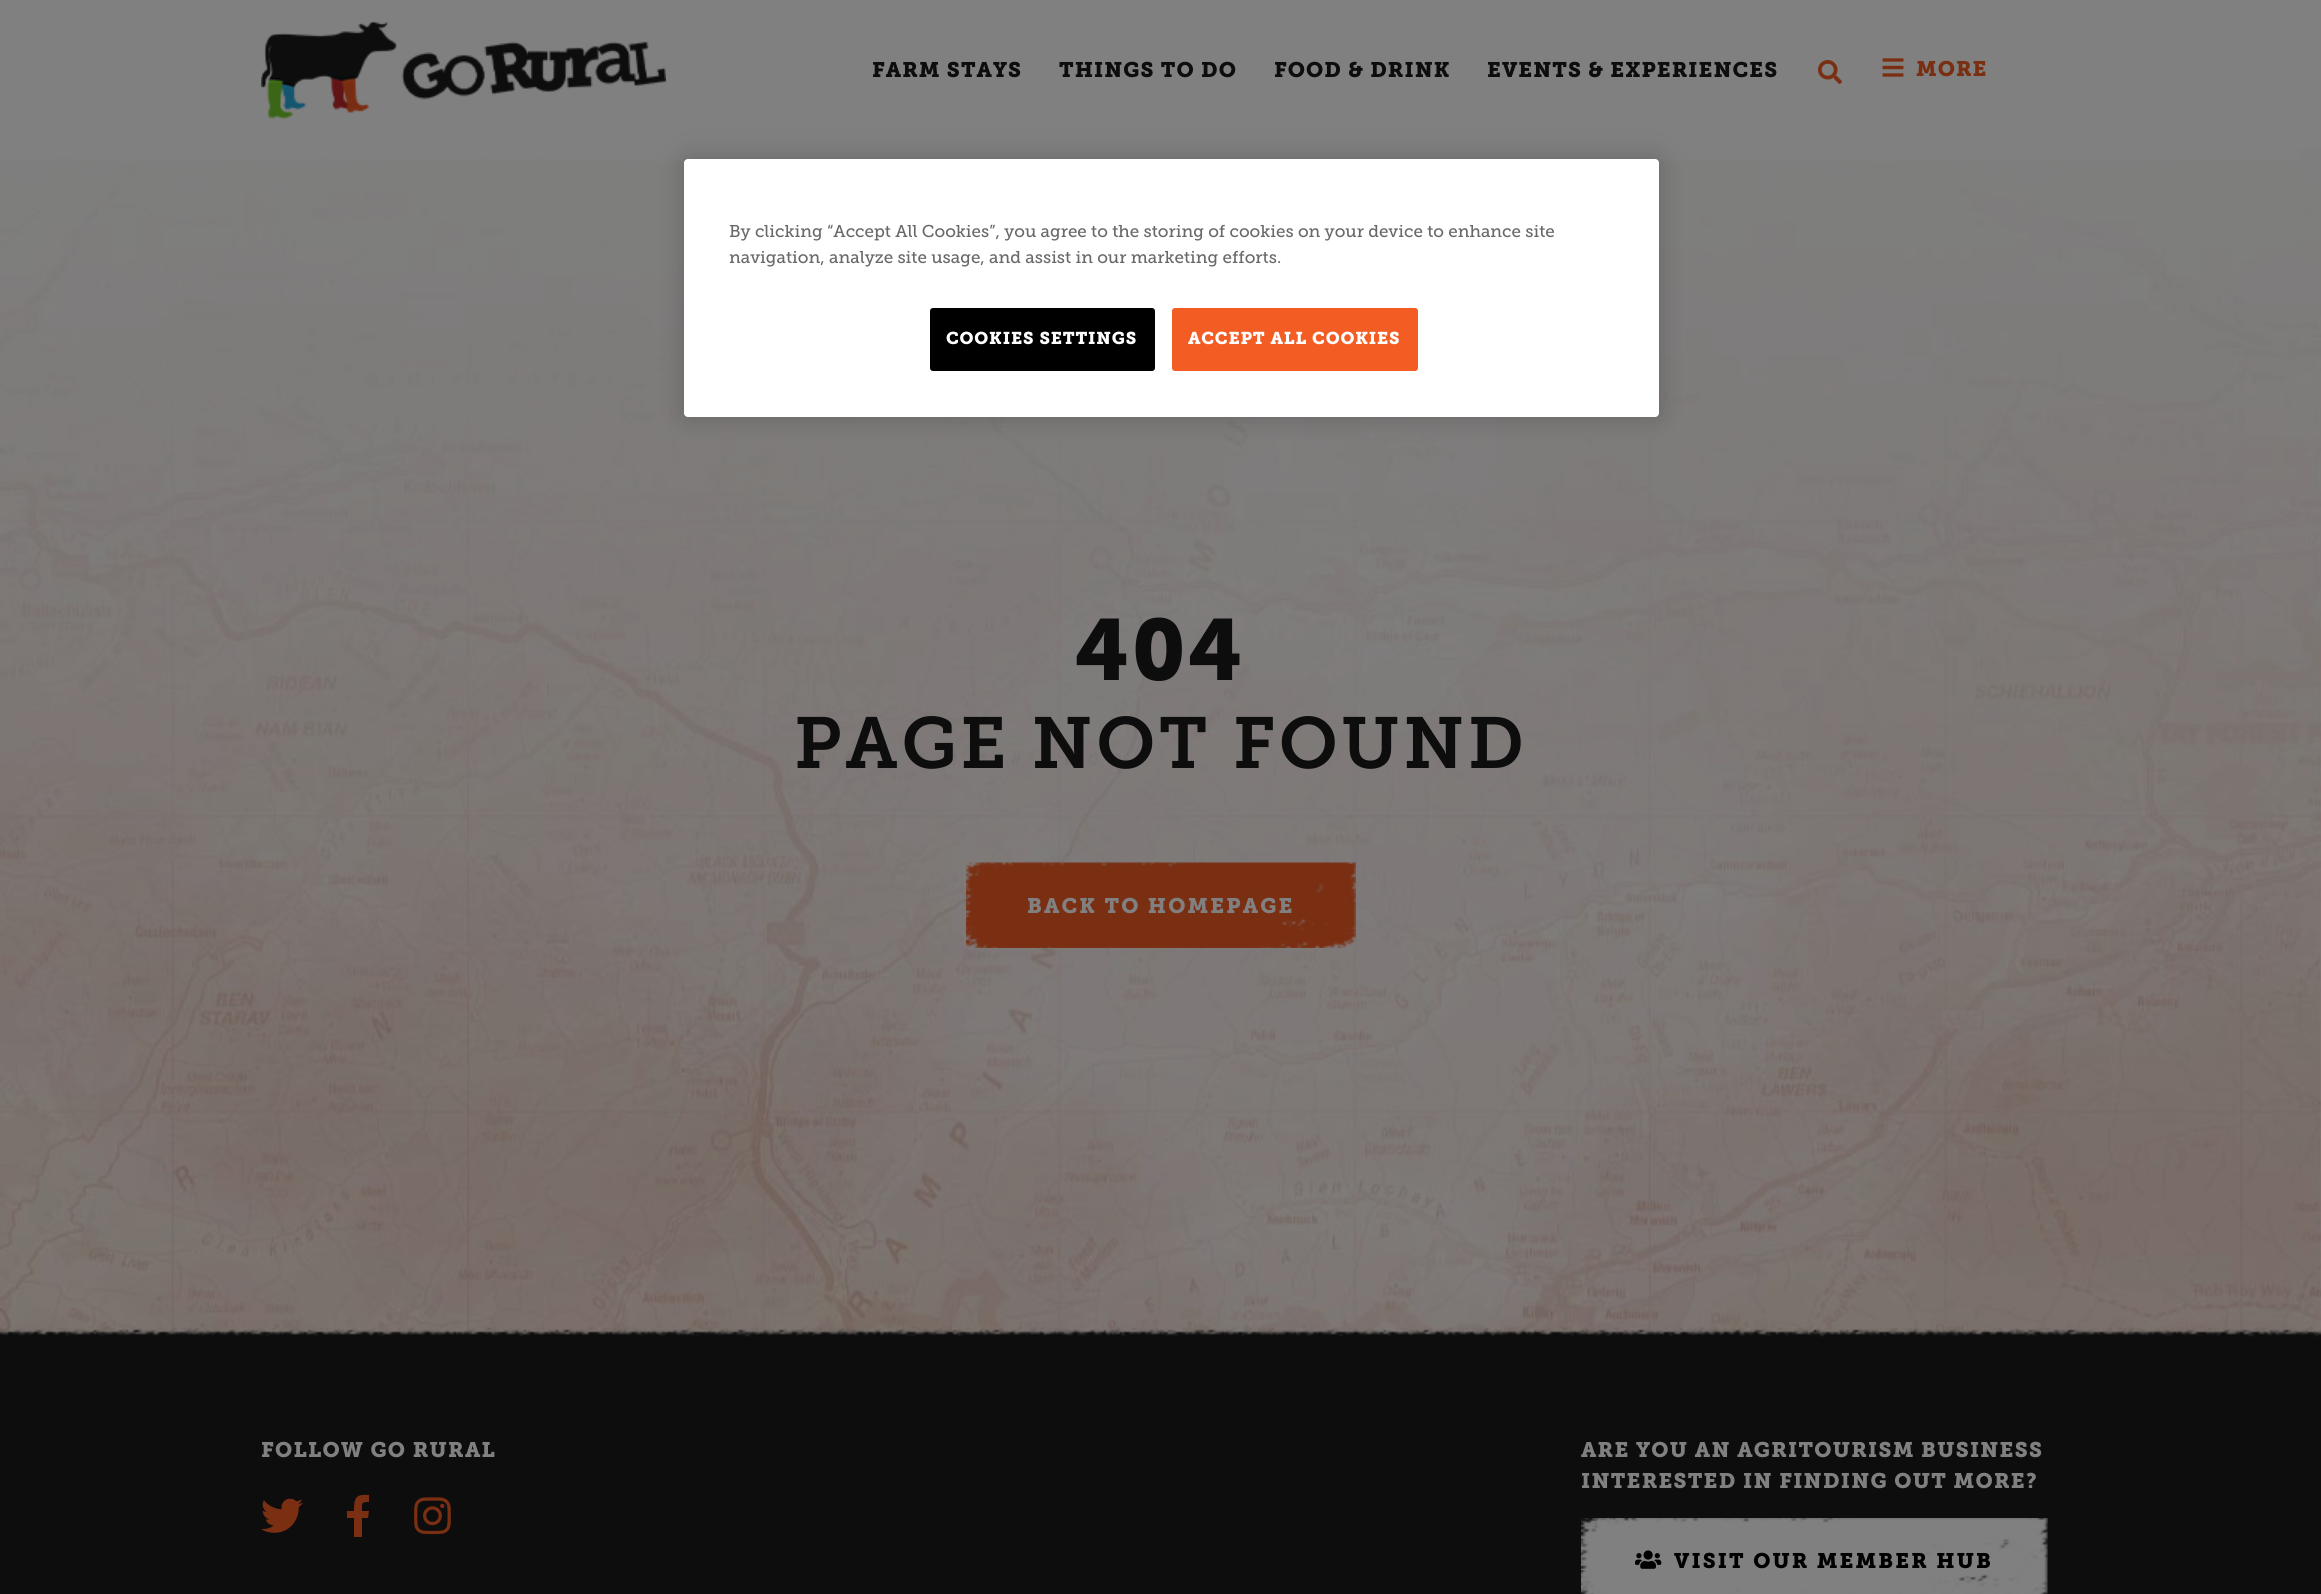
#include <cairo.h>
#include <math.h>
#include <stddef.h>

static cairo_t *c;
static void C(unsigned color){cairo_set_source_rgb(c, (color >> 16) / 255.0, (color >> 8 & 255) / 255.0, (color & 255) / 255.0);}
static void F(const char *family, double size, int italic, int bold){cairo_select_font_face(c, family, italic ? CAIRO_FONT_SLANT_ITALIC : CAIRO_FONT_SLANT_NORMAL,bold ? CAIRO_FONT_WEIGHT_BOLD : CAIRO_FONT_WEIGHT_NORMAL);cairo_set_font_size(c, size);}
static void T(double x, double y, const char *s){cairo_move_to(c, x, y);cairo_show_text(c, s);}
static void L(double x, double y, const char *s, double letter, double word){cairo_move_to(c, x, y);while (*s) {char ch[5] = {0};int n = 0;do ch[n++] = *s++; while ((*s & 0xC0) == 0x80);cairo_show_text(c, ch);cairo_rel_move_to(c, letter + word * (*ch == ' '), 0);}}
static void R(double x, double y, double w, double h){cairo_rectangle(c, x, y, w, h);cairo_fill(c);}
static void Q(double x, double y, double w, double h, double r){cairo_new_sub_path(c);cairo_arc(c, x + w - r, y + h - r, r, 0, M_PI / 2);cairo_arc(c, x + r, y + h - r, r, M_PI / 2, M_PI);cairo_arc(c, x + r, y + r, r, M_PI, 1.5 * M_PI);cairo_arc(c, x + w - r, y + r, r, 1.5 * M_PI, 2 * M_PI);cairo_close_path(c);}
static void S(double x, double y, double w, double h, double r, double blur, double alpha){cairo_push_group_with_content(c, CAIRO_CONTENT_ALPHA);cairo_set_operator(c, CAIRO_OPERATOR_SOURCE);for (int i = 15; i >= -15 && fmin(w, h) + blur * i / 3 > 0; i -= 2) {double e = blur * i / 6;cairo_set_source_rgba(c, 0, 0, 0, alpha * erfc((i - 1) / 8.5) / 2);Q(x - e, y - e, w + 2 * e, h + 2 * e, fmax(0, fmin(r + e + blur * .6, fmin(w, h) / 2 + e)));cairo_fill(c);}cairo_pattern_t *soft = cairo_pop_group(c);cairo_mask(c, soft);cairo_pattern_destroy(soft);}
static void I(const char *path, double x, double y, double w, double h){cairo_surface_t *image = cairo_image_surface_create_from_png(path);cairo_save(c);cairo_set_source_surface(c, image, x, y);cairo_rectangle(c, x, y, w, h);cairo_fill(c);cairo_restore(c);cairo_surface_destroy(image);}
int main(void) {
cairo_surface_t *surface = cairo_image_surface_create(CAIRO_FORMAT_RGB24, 2321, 1594);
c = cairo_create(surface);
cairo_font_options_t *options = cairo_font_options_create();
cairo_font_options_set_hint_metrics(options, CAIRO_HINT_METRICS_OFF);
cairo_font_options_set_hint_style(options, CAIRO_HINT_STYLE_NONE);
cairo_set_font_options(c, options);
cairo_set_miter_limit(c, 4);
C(0x808080);
cairo_paint(c);
I("1.png",261,21,405,98);
F("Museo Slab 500",21,0,1);
C(0x0d0d0d);
L(872,77,"FARM STAYS",1.05,0);
L(1059,77,"THINGS TO DO",1.05,0);
L(1274,77,"FOOD & DRINK",1.05,0);
L(1487,77,"EVENTS & EXPERIENCES",1.05,0);
I("2.png",1818,60,24,24);
I("3.png",1882,58,22,19);
C(0x7a2f12);
L(1916,76,"MORE",1.05,0);
I("5.png",0,149,2321,1188);
I("4.png",0,149,2299,13);
F("Museo Slab 500",86,0,1);
C(0x0d0d0d);
L(1075,680,"404",2.5,0);
F("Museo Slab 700 SemiBold",72,0,0);
L(794,768,"PAGE NOT FOUND",3.6,0);
I("6.png",966,862,390,86);
F("Museo Slab 500",21,0,1);
C(0x808080);
L(1027,913,"BACK TO HOMEPAGE",2.1,0);
I("7.png",0,1328,2321,9);
C(0x0d0d0d);
R(0,1344,2321,250);
I("8.png",0,1326,2321,18);
C(0x808080);
L(261,1457,"FOLLOW GO RURAL",1.25,0);
I("9.png",261,1498,42,35);
C(0x7a2f12);
cairo_new_path(c);
cairo_move_to(c,368,1518);
cairo_line_to(c,362,1518);
cairo_line_to(c,362,1537);
cairo_line_to(c,354,1537);
cairo_line_to(c,354,1518);
cairo_line_to(c,347,1518);
cairo_line_to(c,347,1511);
cairo_line_to(c,354,1511);
cairo_curve_to(c,354,1497,356,1494,369,1495);
cairo_line_to(c,369,1502);
cairo_curve_to(c,361,1502,362,1503,362,1511);
cairo_line_to(c,369,1511);
cairo_close_path(c);
cairo_fill(c);
I("10.png",414,1497,37,38);
C(0x808080);
L(1581,1457,"ARE YOU AN AGRITOURISM BUSINESS",1.25,0);
L(1581,1488,"INTERESTED IN FINDING OUT MORE?",1.25,0);
I("11.png",1581,1518,467,76);
I("12.png",1635,1550,27,19);
C(0x000000);
L(1674,1568,"VISIT OUR MEMBER HUB",2.1,0);
C(0x000000);
S(684,159,975,258,4,13.5,.2);
C(0xffffff);
Q(684,159,975,258,4);
cairo_fill(c);
F("Museo Slab 500",17.05,0,0);
C(0x696969);
T(729,237,"By clicking “Accept All Cookies”, you agree to the storing of cookies on your device to enhance site");
T(729,263,"navigation, analyze site usage, and assist in our marketing efforts.");
C(0x000000);
Q(931,309,223,61,2);
cairo_fill_preserve(c);
cairo_stroke(c);
F("Museo Slab 500",17.05,0,1);
C(0xffffff);
L(946,344,"COOKIES SETTINGS",.8,0);
C(0xf35d23);
Q(1173,309,244,61,2);
cairo_fill_preserve(c);
cairo_stroke(c);
C(0xffffff);
L(1188,344,"ACCEPT ALL COOKIES",.8,0);
cairo_surface_write_to_png(surface, "o.png");
cairo_font_options_destroy(options);
cairo_destroy(c);
cairo_surface_destroy(surface);
return 0;
}
